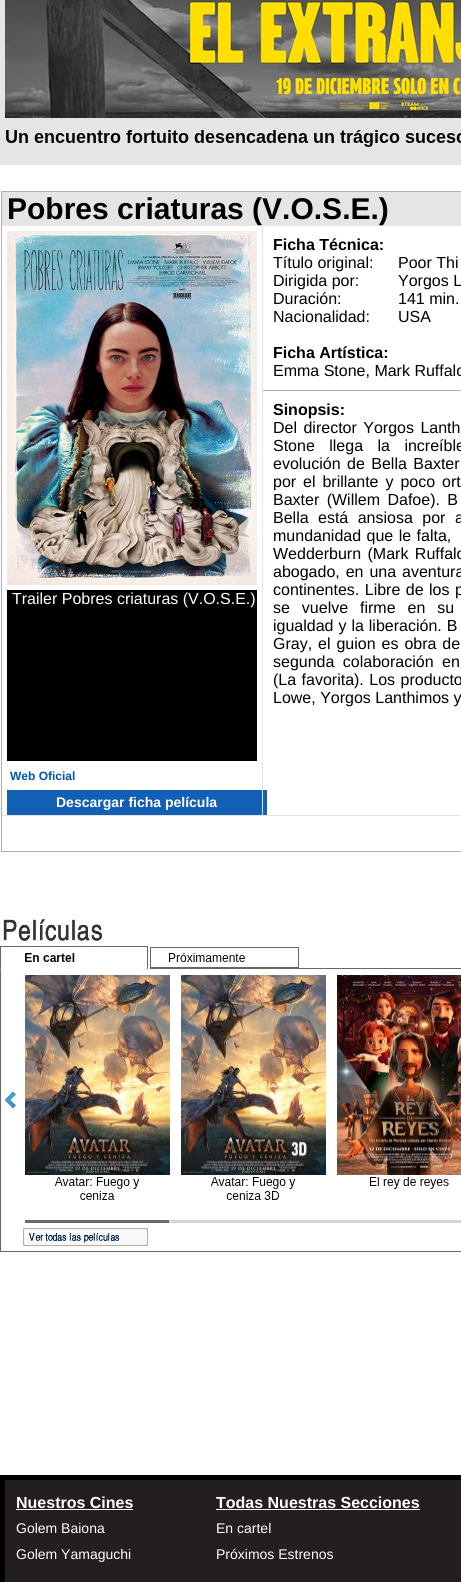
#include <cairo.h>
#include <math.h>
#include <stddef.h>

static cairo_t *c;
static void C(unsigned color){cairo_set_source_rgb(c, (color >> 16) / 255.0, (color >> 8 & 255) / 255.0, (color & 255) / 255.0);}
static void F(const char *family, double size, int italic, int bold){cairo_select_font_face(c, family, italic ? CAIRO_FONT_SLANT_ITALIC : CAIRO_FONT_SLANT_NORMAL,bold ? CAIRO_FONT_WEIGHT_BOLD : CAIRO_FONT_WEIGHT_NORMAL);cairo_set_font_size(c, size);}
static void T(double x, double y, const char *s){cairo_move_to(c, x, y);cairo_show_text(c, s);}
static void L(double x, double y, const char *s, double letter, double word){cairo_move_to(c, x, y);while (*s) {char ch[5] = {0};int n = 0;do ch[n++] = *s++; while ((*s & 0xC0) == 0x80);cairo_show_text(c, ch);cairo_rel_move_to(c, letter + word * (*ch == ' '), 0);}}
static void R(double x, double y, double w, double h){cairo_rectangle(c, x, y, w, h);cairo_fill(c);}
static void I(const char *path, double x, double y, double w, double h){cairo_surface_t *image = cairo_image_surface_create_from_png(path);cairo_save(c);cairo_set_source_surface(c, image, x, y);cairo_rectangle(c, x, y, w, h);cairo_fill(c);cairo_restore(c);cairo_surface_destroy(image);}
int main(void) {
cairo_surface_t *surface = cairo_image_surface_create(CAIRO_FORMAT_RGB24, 461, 1582);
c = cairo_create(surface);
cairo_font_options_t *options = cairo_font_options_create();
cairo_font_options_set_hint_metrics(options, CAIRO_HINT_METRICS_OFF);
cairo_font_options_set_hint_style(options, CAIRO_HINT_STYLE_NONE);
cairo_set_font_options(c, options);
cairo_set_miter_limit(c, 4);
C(0xffffff);
cairo_paint(c);
C(0xe5e5e5);
R(0,0,461,165);
I("1.png",5,0,456,147);
C(0xaeaeae);
R(1,191,460,661);
C(0xffffff);
R(2,226,459,625);
C(0xe5e5e5);
R(2,192,459,34);
F("Liberation Sans",30,0,1);
C(0x000000);
T(7,219,"Pobres criaturas (V.O.S.E.)");
I("2.png",7,231,250,354);
R(7,590,250,171);
F("Liberation Sans",16,0,0);
C(0xffffff);
T(12,604,"Trailer Pobres criaturas (V.O.S.E.)");
F("Liberation Sans",12,0,1);
C(0x0155ad);
T(10,780,"Web Oficial");
C(0x135fb3);
R(7,790,260,25);
F("Liberation Sans",14,0,1);
C(0xffffff);
T(56,807,"Descargar ficha película");
C(0xe5e5e5);
R(262,226,1,589);
F("Liberation Sans",16,0,1);
C(0x000000);
T(273,250,"Ficha Técnica:");
F("Liberation Sans",16,0,0);
T(273,268,"Título original:");
T(398,268,"Poor Thi");
T(273,286,"Dirigida por:");
T(398,286,"Yorgos L");
T(273,304,"Duración:");
T(398,304,"141 min.");
T(273,322,"Nacionalidad:");
T(398,322,"USA");
F("Liberation Sans",16,0,1);
T(273,358,"Ficha Artística:");
F("Liberation Sans",16,0,0);
T(273,376,"Emma Stone, Mark Ruffalo");
C(0xaeaeae);
R(263,390,198,1);
F("Liberation Sans",16,0,1);
C(0x000000);
T(273,415,"Sinopsis:");
F("Liberation Sans",16,0,0);
L(273,433,"Del director Yorgos Lanth",0,2);
L(273,451,"Stone llega la increíble",0,10);
L(273,469,"evolución de Bella Baxter",0,2);
L(273,487,"por el brillante y poco ort",0,2.5);
L(273,505,"Baxter (Willem Dafoe). B",0,3);
L(273,523,"Bella está ansiosa por a",0,5);
L(273,541,"mundanidad que le falta,",0,1);
L(273,559,"Wedderburn (Mark Ruffalo",0,2);
L(273,577,"abogado, en una aventura",0,1.5);
L(273,595,"continentes. Libre de los p",0,1);
L(273,613,"se vuelve firme en su",0,7.5);
L(273,631,"igualdad y la liberación. B",0,.5);
L(273,649,"Gray, el guion es obra de",0,1.5);
L(273,667,"segunda colaboración en",0,4);
L(273,685,"(La favorita). Los producto",0,1);
T(273,703,"Lowe, Yorgos Lanthimos y");
C(0xe5e5e5);
R(2,815,459,1);
I("3.png",0,913,104,32);
I("4.png",0,946,461,306);
C(0x010101);
R(0,1475,461,107);
C(0x231f20);
R(5,1480,456,102);
F("Liberation Sans",16,0,1);
C(0xffffff);
T(16,1508,"Nuestros Cines");
R(16,1509,117,1);
F("Liberation Sans",14,0,0);
T(16,1533,"Golem Baiona");
T(16,1559,"Golem Yamaguchi");
F("Liberation Sans",16,0,1);
T(216,1508,"Todas Nuestras Secciones");
R(216,1509,204,1);
F("Liberation Sans",14,0,0);
T(216,1533,"En cartel");
T(216,1559,"Próximos Estrenos");
cairo_surface_write_to_png(surface, "o.png");
cairo_font_options_destroy(options);
cairo_destroy(c);
cairo_surface_destroy(surface);
return 0;
}
